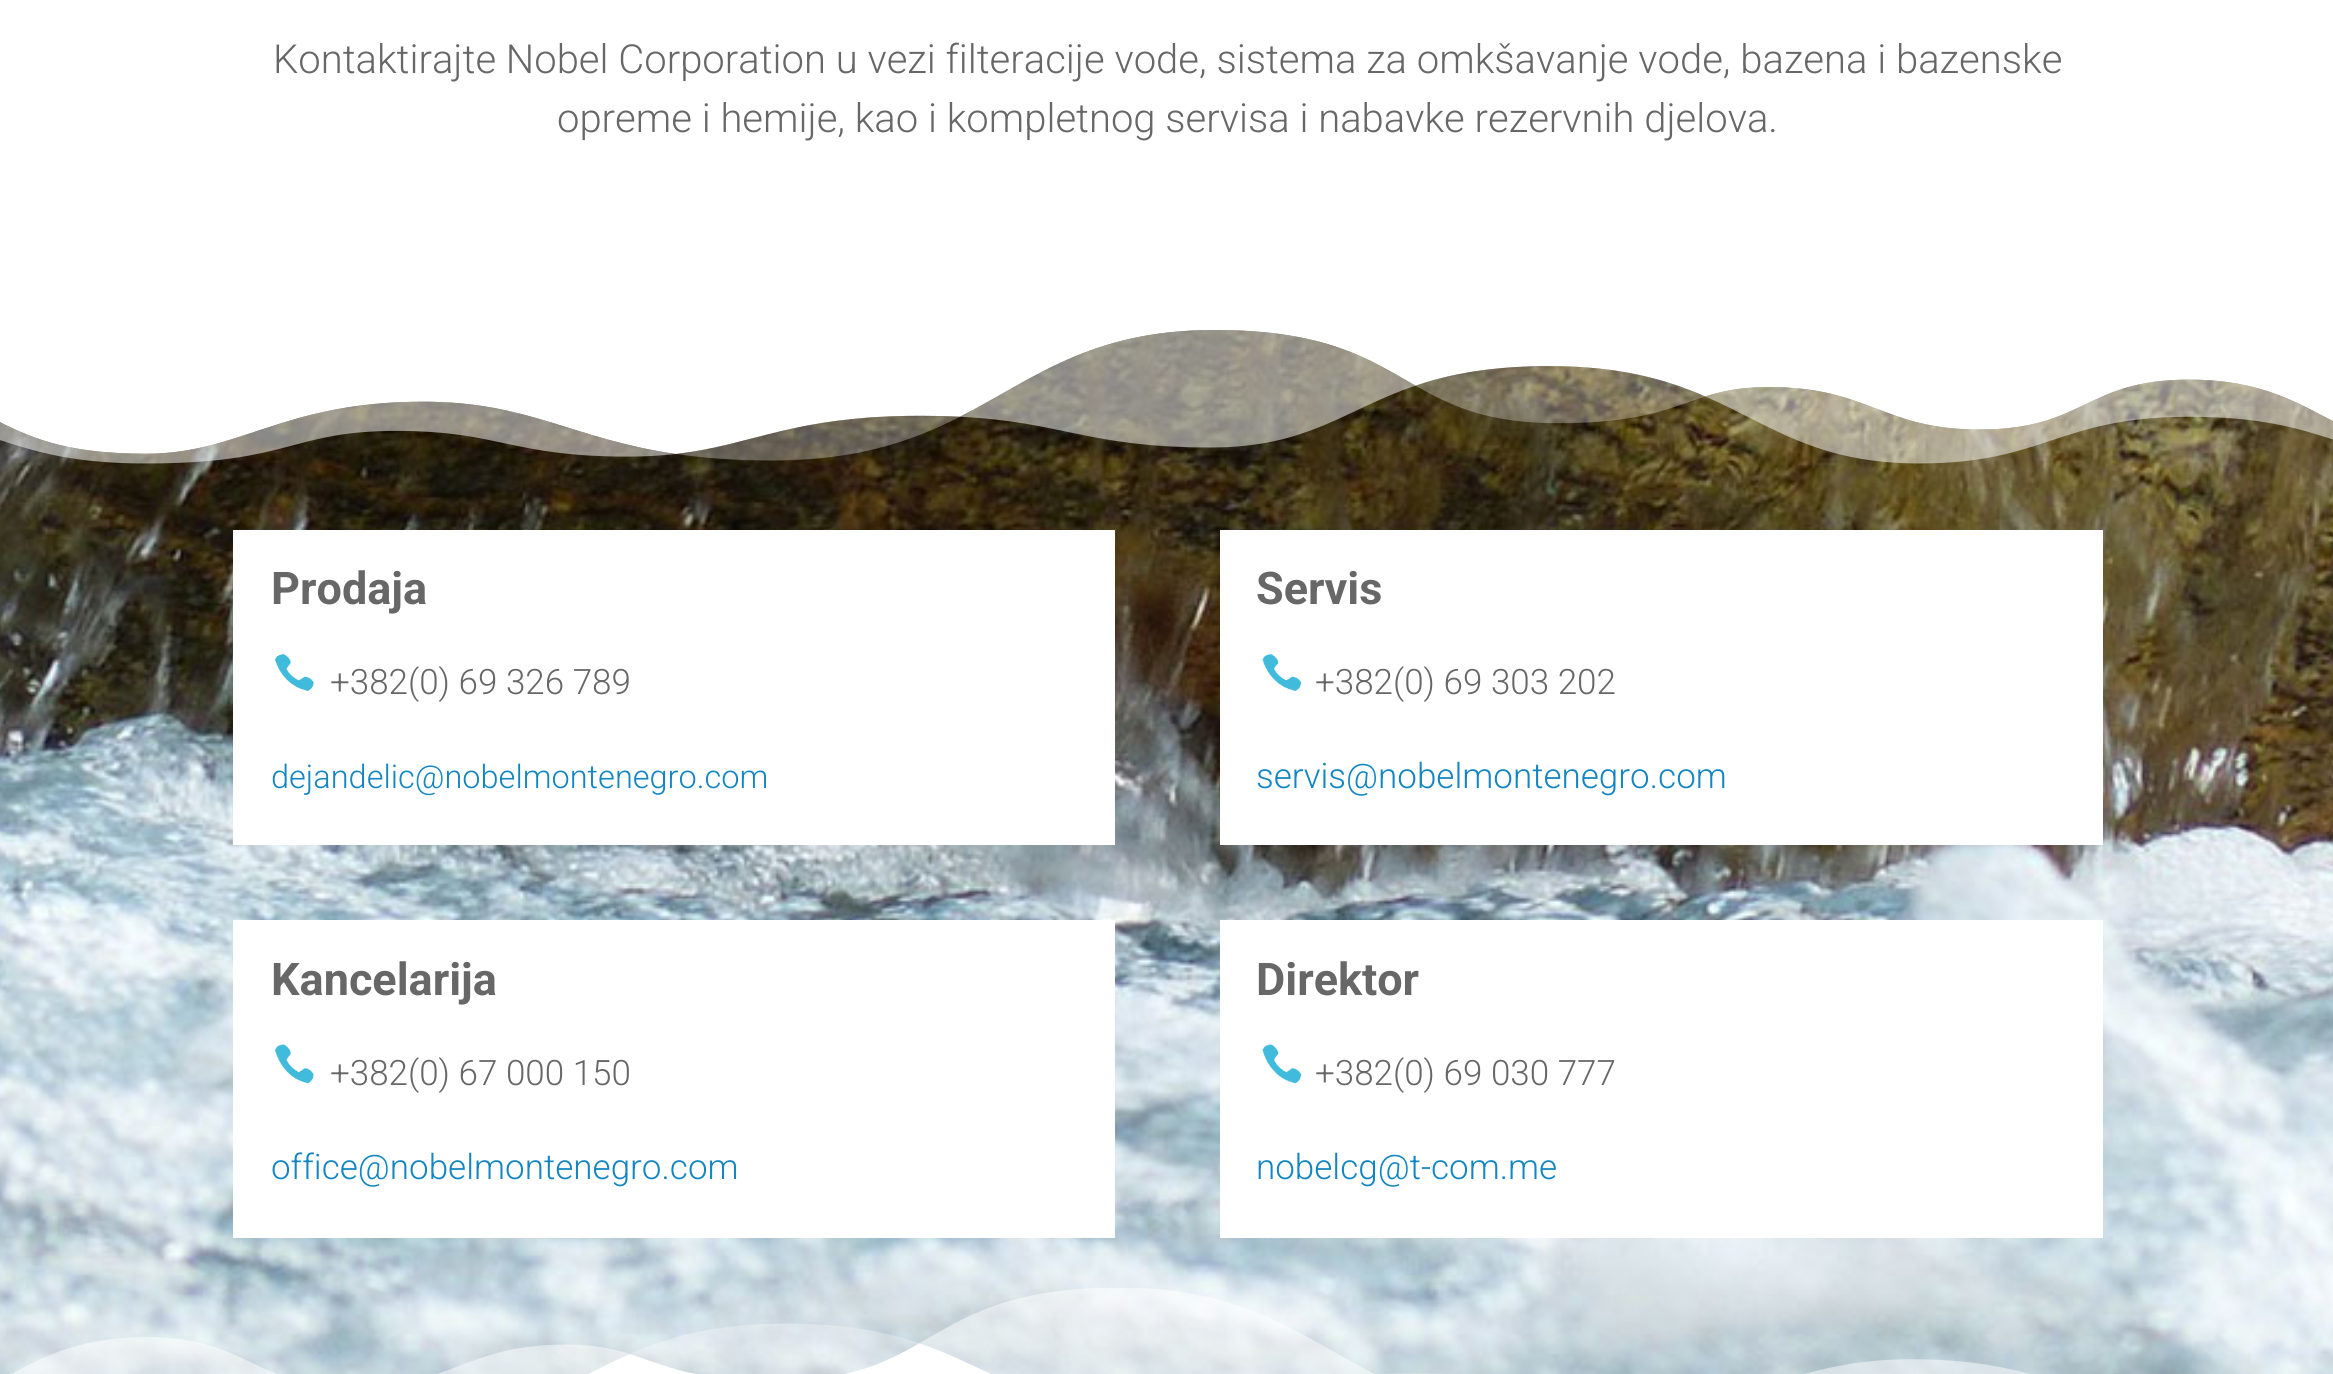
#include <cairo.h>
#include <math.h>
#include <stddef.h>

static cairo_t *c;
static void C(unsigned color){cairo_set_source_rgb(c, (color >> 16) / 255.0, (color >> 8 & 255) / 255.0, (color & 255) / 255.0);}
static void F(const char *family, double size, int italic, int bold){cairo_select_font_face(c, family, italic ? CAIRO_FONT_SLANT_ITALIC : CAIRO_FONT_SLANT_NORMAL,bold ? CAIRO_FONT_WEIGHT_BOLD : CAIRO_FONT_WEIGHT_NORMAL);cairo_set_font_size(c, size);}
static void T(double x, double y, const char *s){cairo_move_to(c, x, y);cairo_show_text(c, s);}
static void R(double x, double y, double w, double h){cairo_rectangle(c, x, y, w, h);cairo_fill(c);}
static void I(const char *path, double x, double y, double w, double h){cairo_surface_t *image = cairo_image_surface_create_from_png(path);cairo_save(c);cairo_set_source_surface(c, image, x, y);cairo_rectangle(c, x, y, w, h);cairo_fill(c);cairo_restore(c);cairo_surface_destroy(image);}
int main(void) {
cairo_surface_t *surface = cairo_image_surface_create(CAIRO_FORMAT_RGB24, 2333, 1374);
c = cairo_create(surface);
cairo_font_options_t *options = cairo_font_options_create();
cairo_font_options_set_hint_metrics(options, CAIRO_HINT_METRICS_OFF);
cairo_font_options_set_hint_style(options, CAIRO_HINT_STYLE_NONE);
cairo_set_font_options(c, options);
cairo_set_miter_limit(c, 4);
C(0xffffff);
cairo_paint(c);
F("Roboto Light",40,0,0);
C(0x676767);
T(273,73,"Kontaktirajte Nobel Corporation u vezi filteracije vode, sistema za omkšavanje vode, bazena i bazenske");
T(557,132,"opreme i hemije, kao i kompletnog servisa i nabavke rezervnih djelova.");
I("1.png",0,330,2333,1044);
I("2.png",0,330,2333,134);
C(0xffffff);
R(233,530,882,315);
F("Roboto",45,0,1);
C(0x676767);
T(271,604,"Prodaja");
I("3.png",274,654,40,38);
F("Roboto Light",35,0,0);
T(330,694,"+382(0) 69 326 789");
F("Roboto Light",32.5,0,0);
C(0x1285c2);
T(271,788,"dejandelic@nobelmontenegro.com");
C(0xffffff);
R(1220,530,883,315);
F("Roboto",45,0,1);
C(0x676767);
T(1256,604,"Servis");
I("4.png",1262,654,40,38);
F("Roboto Light",35,0,0);
T(1315,694,"+382(0) 69 303 202");
C(0x1285c2);
T(1256,788,"servis@nobelmontenegro.com");
C(0xffffff);
R(233,920,882,318);
F("Roboto",45,0,1);
C(0x676767);
T(271,995,"Kancelarija");
I("5.png",274,1044,40,40);
F("Roboto Light",35,0,0);
T(330,1085,"+382(0) 67 000 150");
C(0x1285c2);
T(271,1179,"office@nobelmontenegro.com");
C(0xffffff);
R(1220,920,883,318);
F("Roboto",45,0,1);
C(0x676767);
T(1256,995,"Direktor");
I("6.png",1262,1044,40,40);
F("Roboto Light",35,0,0);
T(1315,1085,"+382(0) 69 030 777");
C(0x1285c2);
T(1256,1179,"nobelcg@t-com.me");
I("7.png",11,1288,2019,86);
cairo_surface_write_to_png(surface, "o.png");
cairo_font_options_destroy(options);
cairo_destroy(c);
cairo_surface_destroy(surface);
return 0;
}
